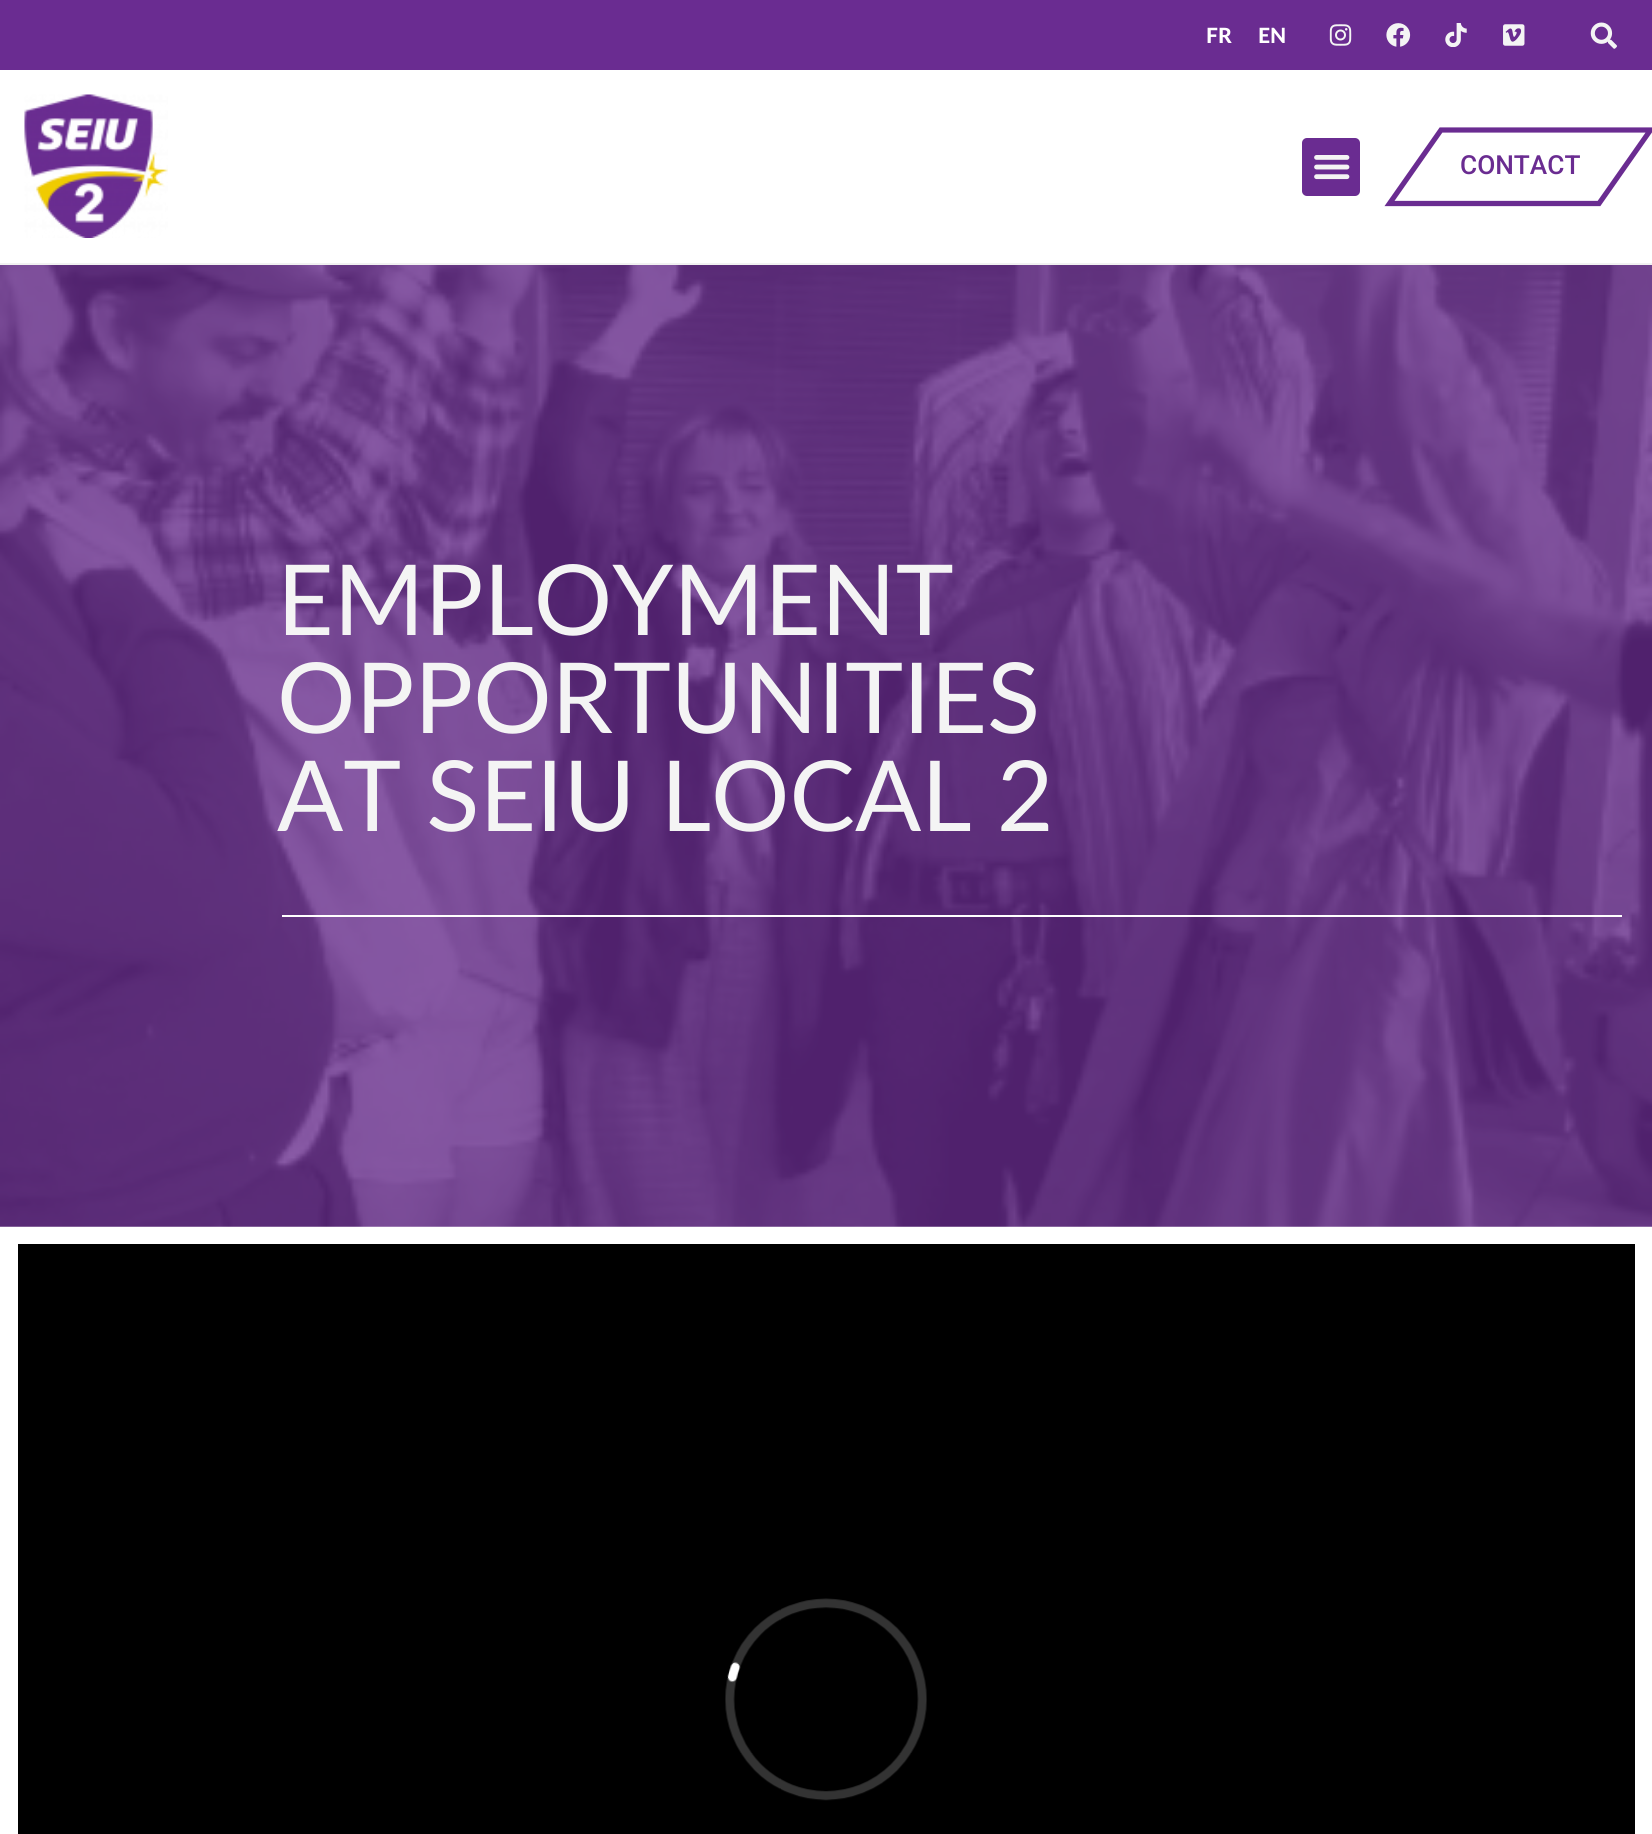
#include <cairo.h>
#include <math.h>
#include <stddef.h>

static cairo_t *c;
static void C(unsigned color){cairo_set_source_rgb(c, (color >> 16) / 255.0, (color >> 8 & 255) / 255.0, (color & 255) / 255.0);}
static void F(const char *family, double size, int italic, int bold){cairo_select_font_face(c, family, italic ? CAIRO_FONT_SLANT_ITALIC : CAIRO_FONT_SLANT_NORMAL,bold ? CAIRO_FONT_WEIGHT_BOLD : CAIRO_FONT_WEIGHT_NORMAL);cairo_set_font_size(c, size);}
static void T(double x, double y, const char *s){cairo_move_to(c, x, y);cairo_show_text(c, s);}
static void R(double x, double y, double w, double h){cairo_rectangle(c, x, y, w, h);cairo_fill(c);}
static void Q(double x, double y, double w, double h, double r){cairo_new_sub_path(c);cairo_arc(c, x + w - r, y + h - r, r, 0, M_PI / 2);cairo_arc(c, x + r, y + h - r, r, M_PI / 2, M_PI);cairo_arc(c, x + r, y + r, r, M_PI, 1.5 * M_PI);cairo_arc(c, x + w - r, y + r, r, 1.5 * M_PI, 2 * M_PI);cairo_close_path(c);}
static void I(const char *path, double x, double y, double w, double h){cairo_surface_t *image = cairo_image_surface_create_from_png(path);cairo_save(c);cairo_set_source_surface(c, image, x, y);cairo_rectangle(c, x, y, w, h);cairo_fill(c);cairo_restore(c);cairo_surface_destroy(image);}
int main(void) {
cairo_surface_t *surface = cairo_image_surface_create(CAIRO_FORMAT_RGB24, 1652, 1834);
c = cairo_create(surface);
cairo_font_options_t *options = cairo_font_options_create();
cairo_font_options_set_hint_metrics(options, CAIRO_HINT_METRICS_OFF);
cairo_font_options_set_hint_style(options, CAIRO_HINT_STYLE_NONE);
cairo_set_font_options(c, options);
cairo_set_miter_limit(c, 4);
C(0xffffff);
cairo_paint(c);
C(0xf1f1f1);
R(0,263,1652,2);
C(0x6a2c91);
R(0,0,1652,70);
F("Lato Black",21,0,0);
C(0xffffff);
T(1206,43,"FR");
T(1258,43,"EN");
I("1.png",1329,24,23,22);
I("2.png",1386,23,25,24);
I("3.png",1445,23,22,24);
I("4.png",1503,24,22,22);
I("5.png",1590,22,27,27);
I("6.png",24,94,144,144);
C(0x6a2c91);
Q(1302,138,58,58,5);
cairo_fill(c);
I("7.png",1314,155,36,25);
cairo_new_path(c);
cairo_move_to(c,1441,130);
cairo_line_to(c,1650.5,130);
cairo_line_to(c,1599,203.5);
cairo_line_to(c,1389.5,203.5);
cairo_close_path(c);
cairo_set_line_width(c,5.2);
cairo_stroke(c);
F("Roboto Medium",26.25,0,0);
T(1460,174,"CONTACT");
I("8.png",0,265,1652,962);
F("Lato",98,0,0);
C(0xf4f4f4);
T(277,635,"EMPLOYMENT");
T(277,733,"OPPORTUNITIES");
T(277,831,"AT SEIU LOCAL 2");
C(0xffffff);
R(282,915,1340,2);
C(0x000000);
R(18,1244,1617,590);
I("9.png",725,1598,202,203);
cairo_surface_write_to_png(surface, "o.png");
cairo_font_options_destroy(options);
cairo_destroy(c);
cairo_surface_destroy(surface);
return 0;
}
